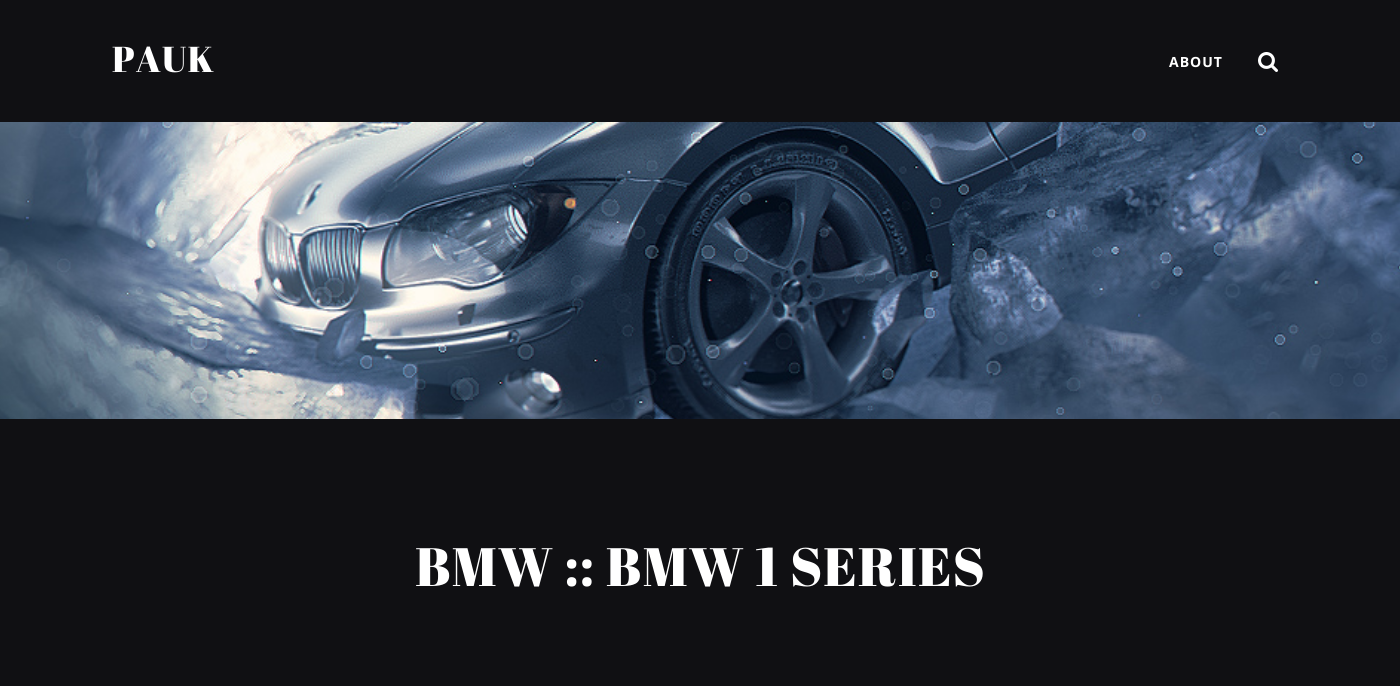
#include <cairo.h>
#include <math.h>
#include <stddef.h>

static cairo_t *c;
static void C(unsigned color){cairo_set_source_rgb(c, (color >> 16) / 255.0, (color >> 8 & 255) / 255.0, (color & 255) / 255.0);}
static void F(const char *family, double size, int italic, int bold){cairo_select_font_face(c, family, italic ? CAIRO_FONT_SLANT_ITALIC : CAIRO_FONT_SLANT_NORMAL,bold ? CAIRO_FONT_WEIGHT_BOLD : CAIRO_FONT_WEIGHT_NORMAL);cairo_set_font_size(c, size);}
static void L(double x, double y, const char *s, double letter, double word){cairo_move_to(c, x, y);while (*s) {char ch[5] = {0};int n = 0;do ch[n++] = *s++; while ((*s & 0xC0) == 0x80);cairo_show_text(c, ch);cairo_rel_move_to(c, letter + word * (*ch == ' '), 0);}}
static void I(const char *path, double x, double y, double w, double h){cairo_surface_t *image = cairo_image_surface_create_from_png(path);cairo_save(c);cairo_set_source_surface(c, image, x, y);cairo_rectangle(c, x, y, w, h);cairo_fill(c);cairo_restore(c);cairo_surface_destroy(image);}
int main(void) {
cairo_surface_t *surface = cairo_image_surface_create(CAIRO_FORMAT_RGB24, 1400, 686);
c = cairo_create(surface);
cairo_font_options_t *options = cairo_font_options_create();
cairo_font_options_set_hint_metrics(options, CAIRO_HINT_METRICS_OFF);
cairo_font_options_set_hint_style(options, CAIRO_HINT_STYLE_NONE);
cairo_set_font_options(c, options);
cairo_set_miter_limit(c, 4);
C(0x101013);
cairo_paint(c);
F("Abril Fatface",36,0,0);
C(0xffffff);
L(112,72,"PAUK",1,0);
F("Open Sans",14,0,1);
L(1169,67,"ABOUT",1,0);
I("1.png",1258,52,20,20);
I("2.png",0,122,1400,297);
F("Abril Fatface",54,0,0);
L(415,586,"BMW :: BMW 1 SERIES",1,0);
cairo_surface_write_to_png(surface, "o.png");
cairo_font_options_destroy(options);
cairo_destroy(c);
cairo_surface_destroy(surface);
return 0;
}
